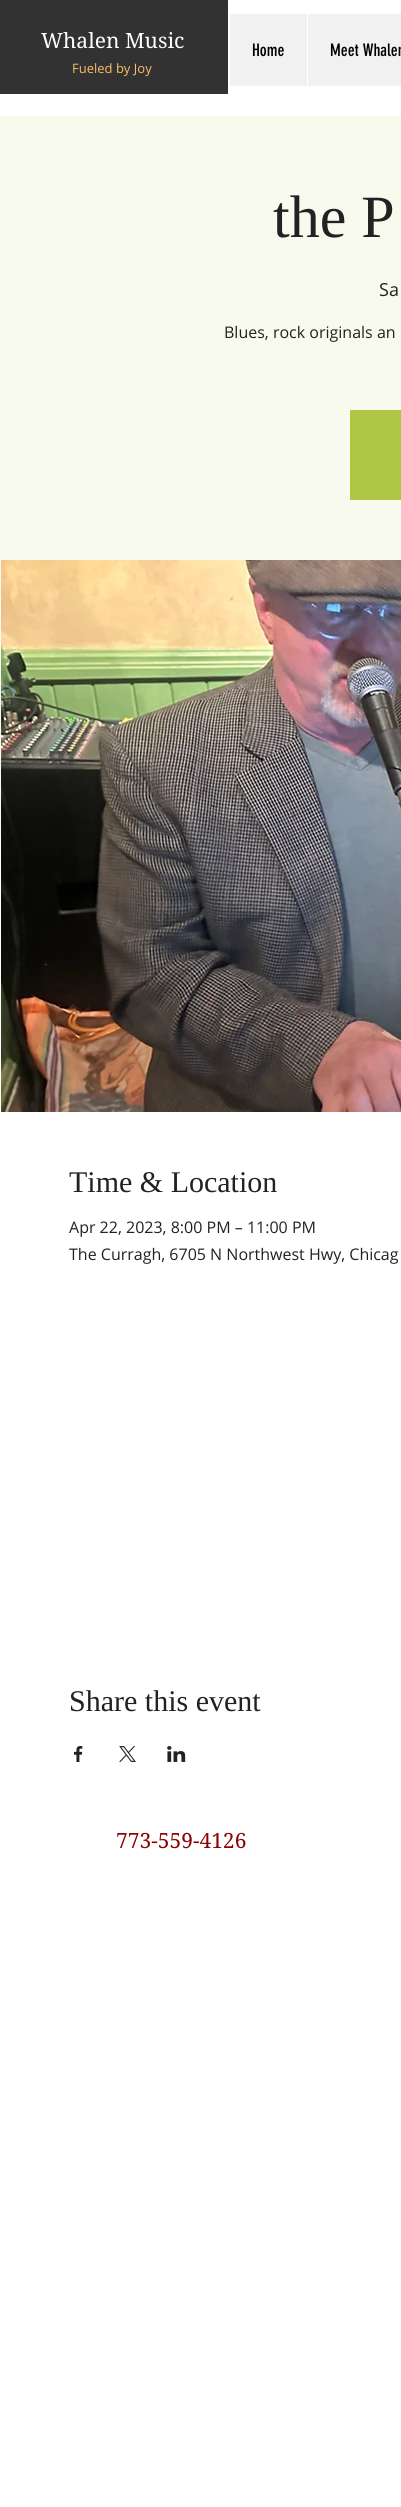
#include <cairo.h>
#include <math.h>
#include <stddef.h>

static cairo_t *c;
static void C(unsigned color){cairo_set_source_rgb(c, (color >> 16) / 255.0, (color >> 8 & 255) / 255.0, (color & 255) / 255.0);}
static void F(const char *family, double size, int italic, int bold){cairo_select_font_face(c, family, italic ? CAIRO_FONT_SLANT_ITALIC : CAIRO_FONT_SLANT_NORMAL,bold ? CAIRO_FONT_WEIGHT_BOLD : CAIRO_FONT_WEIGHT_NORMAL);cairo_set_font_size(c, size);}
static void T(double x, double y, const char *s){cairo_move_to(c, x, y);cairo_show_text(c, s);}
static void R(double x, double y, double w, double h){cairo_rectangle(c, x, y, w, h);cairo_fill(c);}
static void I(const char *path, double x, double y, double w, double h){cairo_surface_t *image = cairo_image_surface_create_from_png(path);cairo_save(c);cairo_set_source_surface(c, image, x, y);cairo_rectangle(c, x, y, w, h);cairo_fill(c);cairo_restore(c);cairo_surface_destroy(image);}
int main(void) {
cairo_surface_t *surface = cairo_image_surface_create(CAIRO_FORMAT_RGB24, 401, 2507);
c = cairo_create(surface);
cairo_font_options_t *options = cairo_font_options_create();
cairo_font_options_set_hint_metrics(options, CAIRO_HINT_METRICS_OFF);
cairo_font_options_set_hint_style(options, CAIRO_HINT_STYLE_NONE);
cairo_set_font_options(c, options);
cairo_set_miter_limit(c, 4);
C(0xffffff);
cairo_paint(c);
C(0x323232);
R(0,0,228,94);
F("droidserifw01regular",21,0,0);
C(0xffffff);
T(41,48,"Whalen Music");
F("Open Sans",13,0,0);
C(0xfcc065);
T(72,73,"Fueled by Joy");
C(0xf1f1f1);
R(230,14,171,72);
F("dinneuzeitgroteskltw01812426",17,0,0);
C(0x000000);
T(252,56,"Home");
C(0xffffff);
R(307,14,1,72);
C(0x000000);
T(330,56,"Meet Whalen");
C(0xf7faed);
R(0,116,401,720);
F("Liberation Serif",60,0,0);
C(0x222222);
T(273,237,"the P");
F("Open Sans",18,0,0);
T(379,296,"Sa");
F("Open Sans",16,0,0);
T(224,338,"Blues, rock originals an");
C(0xadc743);
R(350,410,51,90);
I("1.png",1,560,400,552);
F("Liberation Serif",30,0,0);
C(0x222222);
T(69,1192,"Time & Location");
F("Open Sans",16,0,0);
T(69,1233,"Apr 22, 2023, 8:00 PM – 11:00 PM");
T(69,1260,"The Curragh, 6705 N Northwest Hwy, Chicag");
F("Liberation Serif",30,0,0);
T(69,1711,"Share this event");
I("2.png",74,1746,9,16);
I("3.png",119,1746,17,16);
I("4.png",167,1746,19,16);
F("droidserifw01regular",21,0,0);
C(0x8b0000);
T(116,1848,"773-559-4126");
cairo_surface_write_to_png(surface, "o.png");
cairo_font_options_destroy(options);
cairo_destroy(c);
cairo_surface_destroy(surface);
return 0;
}
